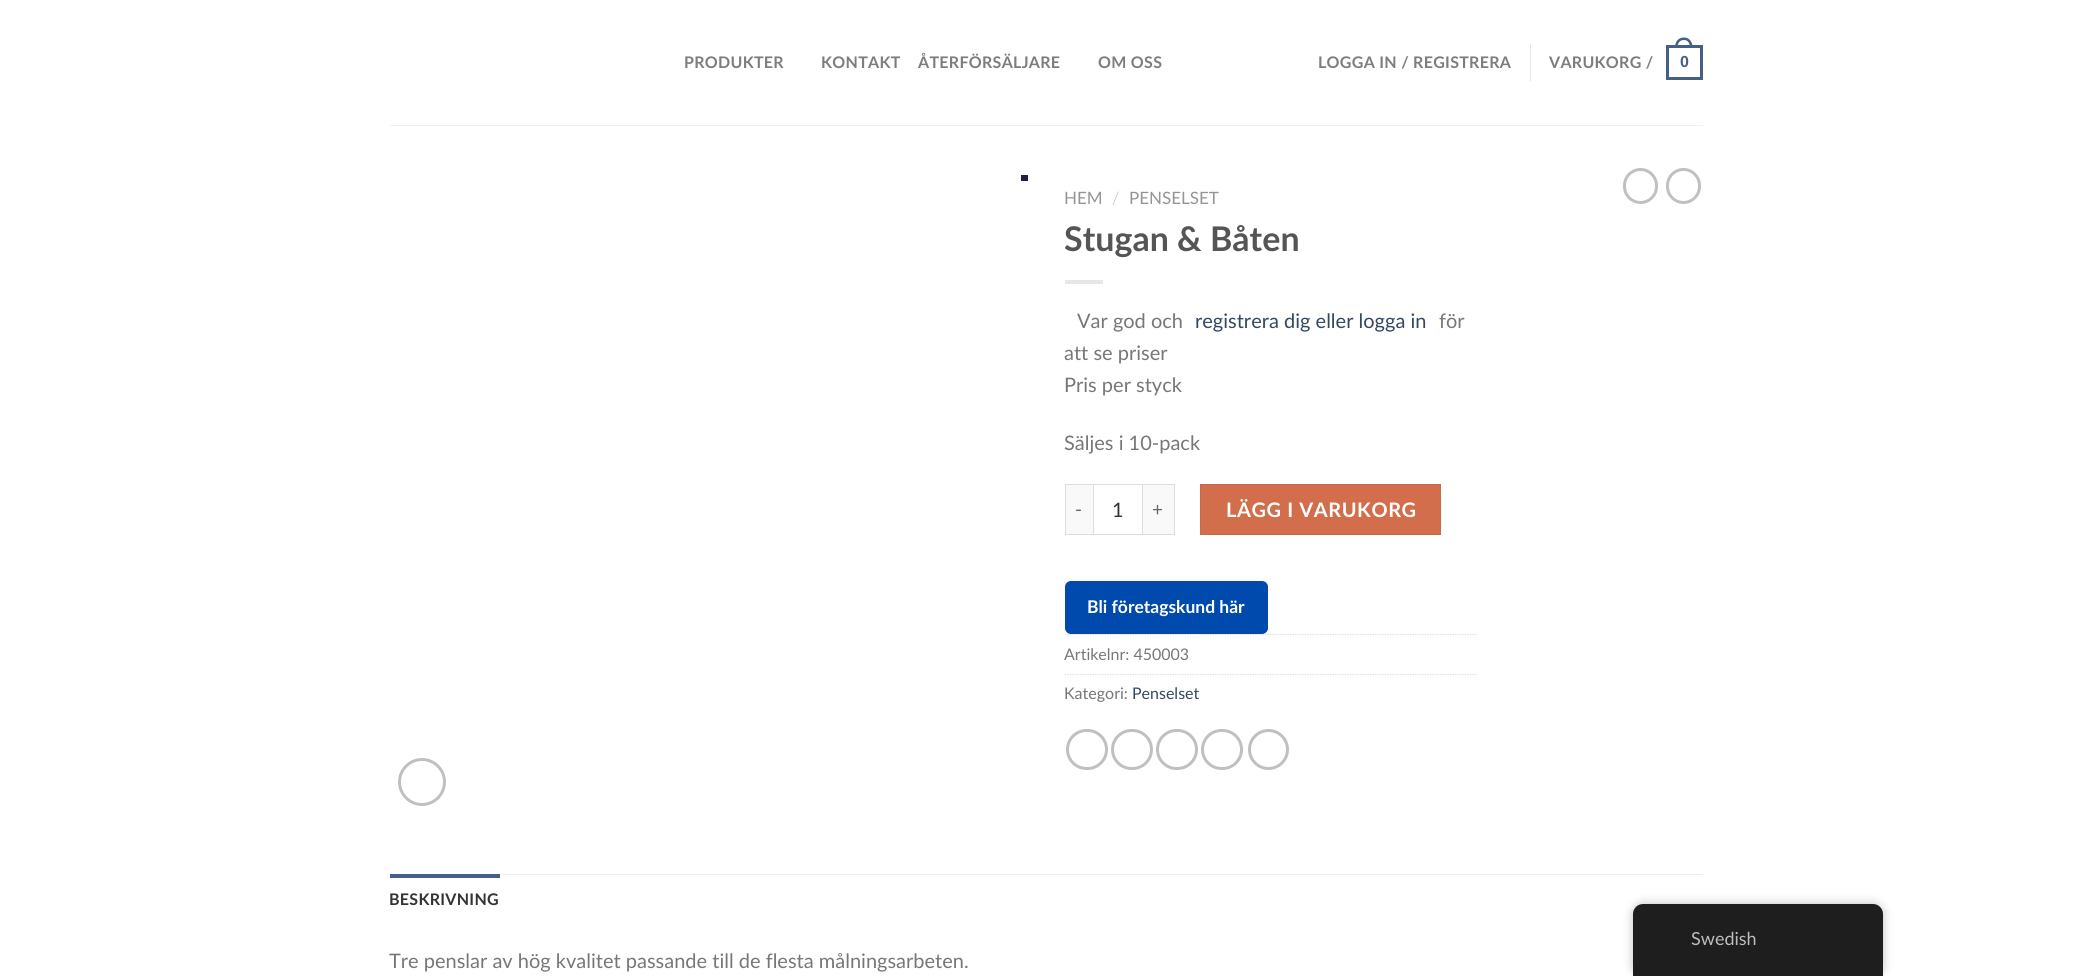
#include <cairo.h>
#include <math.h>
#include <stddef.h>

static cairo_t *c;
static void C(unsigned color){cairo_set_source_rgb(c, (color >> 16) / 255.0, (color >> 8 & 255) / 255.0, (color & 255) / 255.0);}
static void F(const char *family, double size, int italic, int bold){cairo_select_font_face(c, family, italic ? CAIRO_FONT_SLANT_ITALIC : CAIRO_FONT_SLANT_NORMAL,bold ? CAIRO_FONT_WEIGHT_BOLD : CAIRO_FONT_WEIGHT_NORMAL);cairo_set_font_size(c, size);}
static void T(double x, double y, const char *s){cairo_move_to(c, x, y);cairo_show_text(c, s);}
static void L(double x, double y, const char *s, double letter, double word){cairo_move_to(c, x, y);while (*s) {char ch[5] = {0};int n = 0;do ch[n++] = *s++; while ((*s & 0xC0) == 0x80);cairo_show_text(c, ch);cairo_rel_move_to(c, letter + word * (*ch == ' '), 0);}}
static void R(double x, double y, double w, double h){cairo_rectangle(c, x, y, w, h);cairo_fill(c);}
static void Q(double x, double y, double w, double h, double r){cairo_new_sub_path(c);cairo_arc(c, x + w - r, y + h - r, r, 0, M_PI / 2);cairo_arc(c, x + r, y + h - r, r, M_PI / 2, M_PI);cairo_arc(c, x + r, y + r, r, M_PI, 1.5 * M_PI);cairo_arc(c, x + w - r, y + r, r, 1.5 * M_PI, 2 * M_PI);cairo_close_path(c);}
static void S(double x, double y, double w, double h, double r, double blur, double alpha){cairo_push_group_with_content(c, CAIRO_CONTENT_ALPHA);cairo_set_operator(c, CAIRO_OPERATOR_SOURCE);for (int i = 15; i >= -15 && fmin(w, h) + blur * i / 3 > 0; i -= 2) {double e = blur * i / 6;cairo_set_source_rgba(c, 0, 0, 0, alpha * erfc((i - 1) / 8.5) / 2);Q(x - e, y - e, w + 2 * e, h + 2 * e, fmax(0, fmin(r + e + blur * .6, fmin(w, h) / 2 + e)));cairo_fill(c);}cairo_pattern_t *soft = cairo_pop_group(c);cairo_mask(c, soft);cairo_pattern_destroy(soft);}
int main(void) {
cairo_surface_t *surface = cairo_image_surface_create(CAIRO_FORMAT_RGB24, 2091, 976);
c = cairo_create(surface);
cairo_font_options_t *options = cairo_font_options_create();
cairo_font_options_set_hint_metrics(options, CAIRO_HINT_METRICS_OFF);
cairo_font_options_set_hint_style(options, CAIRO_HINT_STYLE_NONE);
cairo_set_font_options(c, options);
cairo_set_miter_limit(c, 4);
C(0xffffff);
cairo_paint(c);
F("Lato",16,0,1);
C(0x7d7d7d);
L(684,68,"PRODUKTER",.3,0);
L(821,68,"KONTAKT",.3,0);
L(918,68,"ÅTERFÖRSÄLJARE",.3,0);
L(1098,68,"OM OSS",.3,0);
L(1318,68,"LOGGA IN / REGISTRERA",.3,0);
C(0xe6e6e6);
R(1530,44,1,37);
C(0x7d7d7d);
L(1549,68,"VARUKORG /",.3,0);
cairo_rectangle(c,1667.5,46.5,34,32);
C(0x446084);
cairo_set_line_width(c,3);
cairo_stroke(c);
cairo_set_fill_rule(c,CAIRO_FILL_RULE_EVEN_ODD);
cairo_new_path(c);
cairo_move_to(c,1684,37.5);
cairo_curve_to(c,1689.5,37.5,1692.5,42,1692.5,47.5);
cairo_line_to(c,1675,47.5);
cairo_curve_to(c,1675,42,1678,37.5,1684,37.5);
cairo_close_path(c);
cairo_move_to(c,1684,40);
cairo_curve_to(c,1688,40,1690,43.5,1690,47.5);
cairo_line_to(c,1677.5,47.5);
cairo_curve_to(c,1677.5,43.5,1679.5,40,1684,40);
cairo_close_path(c);
cairo_fill(c);
F("Liberation Sans",16,0,1);
L(1680,67,"0",.3,0);
C(0xf1f1f1);
R(390,125,1313,1);
C(0x261f41);
R(1021,175,7,6);
cairo_new_path(c);
cairo_arc(c,422,782,22.5,0,2 * M_PI);
C(0xc0c0c0);
cairo_stroke(c);
F("Lato",17,0,0);
C(0x949494);
T(1064,204,"HEM");
F("Lato Light",17,0,0);
C(0xb2b2b2);
T(1112,204,"/");
F("Lato",17,0,0);
C(0x949494);
T(1129,204,"PENSELSET");
F("Lato",34,0,1);
C(0x555555);
T(1064,251,"Stugan & Båten");
C(0xe6e6e6);
R(1065,280,38,4);
F("Lato",20,0,0);
C(0x777777);
T(1077,328,"Var god och");
C(0x334862);
T(1195,328,"registrera dig eller logga in");
C(0x777777);
T(1439,328,"för");
T(1064,360,"att se priser");
T(1064,392,"Pris per styck");
T(1064,450,"Säljes i 10-pack");
C(0xf9f9f9);
R(1066,485,27,49);
C(0xdddddd);
R(1065,484,28,1);
R(1065,534,28,1);
R(1065,484,1,51);
F("Lato",19,0,0);
C(0x666666);
L(1075,516,"-",1,0);
cairo_rectangle(c,1093.5,484.5,49,50);
C(0xdddddd);
cairo_set_line_width(c,1);
cairo_stroke(c);
F("Lato",20,0,0);
C(0x333333);
T(1112,517,"1");
C(0xf9f9f9);
R(1143,485,31,49);
C(0xdddddd);
R(1143,484,32,1);
R(1174,484,1,51);
R(1143,534,32,1);
F("Lato",19,0,0);
C(0x666666);
L(1152,516,"+",1,0);
C(0xd26e4b);
cairo_rectangle(c,1200.5,484.5,240,50);
cairo_fill_preserve(c);
C(0xc86947);
cairo_stroke(c);
F("Lato",20,0,1);
C(0xffffff);
L(1226,517,"LÄGG I VARUKORG",.6,0);
cairo_new_path(c);
cairo_move_to(c,1065,634.5);
cairo_line_to(c,1477.5,634.5);
C(0xdddddd);
cairo_set_line_width(c,1.2);
cairo_set_dash(c,(double[]){1.25,1.25},2,0);
cairo_stroke(c);
C(0x004aad);
Q(1065,581,203,53,6);
cairo_fill(c);
F("Lato",17.5,0,1);
C(0xffffff);
T(1087,613,"Bli företagskund här");
F("Lato",16,0,0);
C(0x777777);
T(1064,660,"Artikelnr: 450003");
cairo_new_path(c);
cairo_move_to(c,1065,674.5);
cairo_line_to(c,1477.5,674.5);
C(0xdddddd);
cairo_stroke(c);
C(0x777777);
T(1064,699,"Kategori:");
C(0x334862);
T(1132,699,"Penselset");
Q(1067.5,730.5,39,38,19);
C(0xc0c0c0);
cairo_set_line_width(c,3);
cairo_set_dash(c,NULL,0,0);
cairo_stroke(c);
Q(1112.5,730.5,39,38,19);
cairo_stroke(c);
Q(1157.5,730.5,39,38,19);
cairo_stroke(c);
Q(1202.5,730.5,39,38,19);
cairo_stroke(c);
cairo_arc(c,1268.5,749.5,19,0,2 * M_PI);
cairo_stroke(c);
Q(1624.5,169.5,32,33,16);
cairo_stroke(c);
Q(1667.5,169.5,32,33,16);
cairo_stroke(c);
C(0xececec);
R(500,874,1203,1);
C(0x446084);
R(390,874,110,4);
F("Lato",16,0,1);
C(0x333333);
L(389,905,"BESKRIVNING",.3,0);
F("Lato",20,0,0);
C(0x777777);
T(389,968,"Tre penslar av hög kvalitet passande till de flesta målningsarbeten.");
C(0x000000);
S(1633,904,250,72,10,5,.25);
C(0x1e1e1e);
cairo_new_path(c);
cairo_move_to(c,1643,904);
cairo_line_to(c,1873,904);
cairo_curve_to(c,1878.5,904,1883,908.5,1883,914);
cairo_line_to(c,1883,976);
cairo_line_to(c,1633,976);
cairo_line_to(c,1633,914);
cairo_curve_to(c,1633,908.5,1637.5,904,1643,904);
cairo_close_path(c);
cairo_fill(c);
F("Lato",18,0,0);
C(0xbdbdbd);
T(1691,945,"Swedish");
cairo_surface_write_to_png(surface, "o.png");
cairo_font_options_destroy(options);
cairo_destroy(c);
cairo_surface_destroy(surface);
return 0;
}
